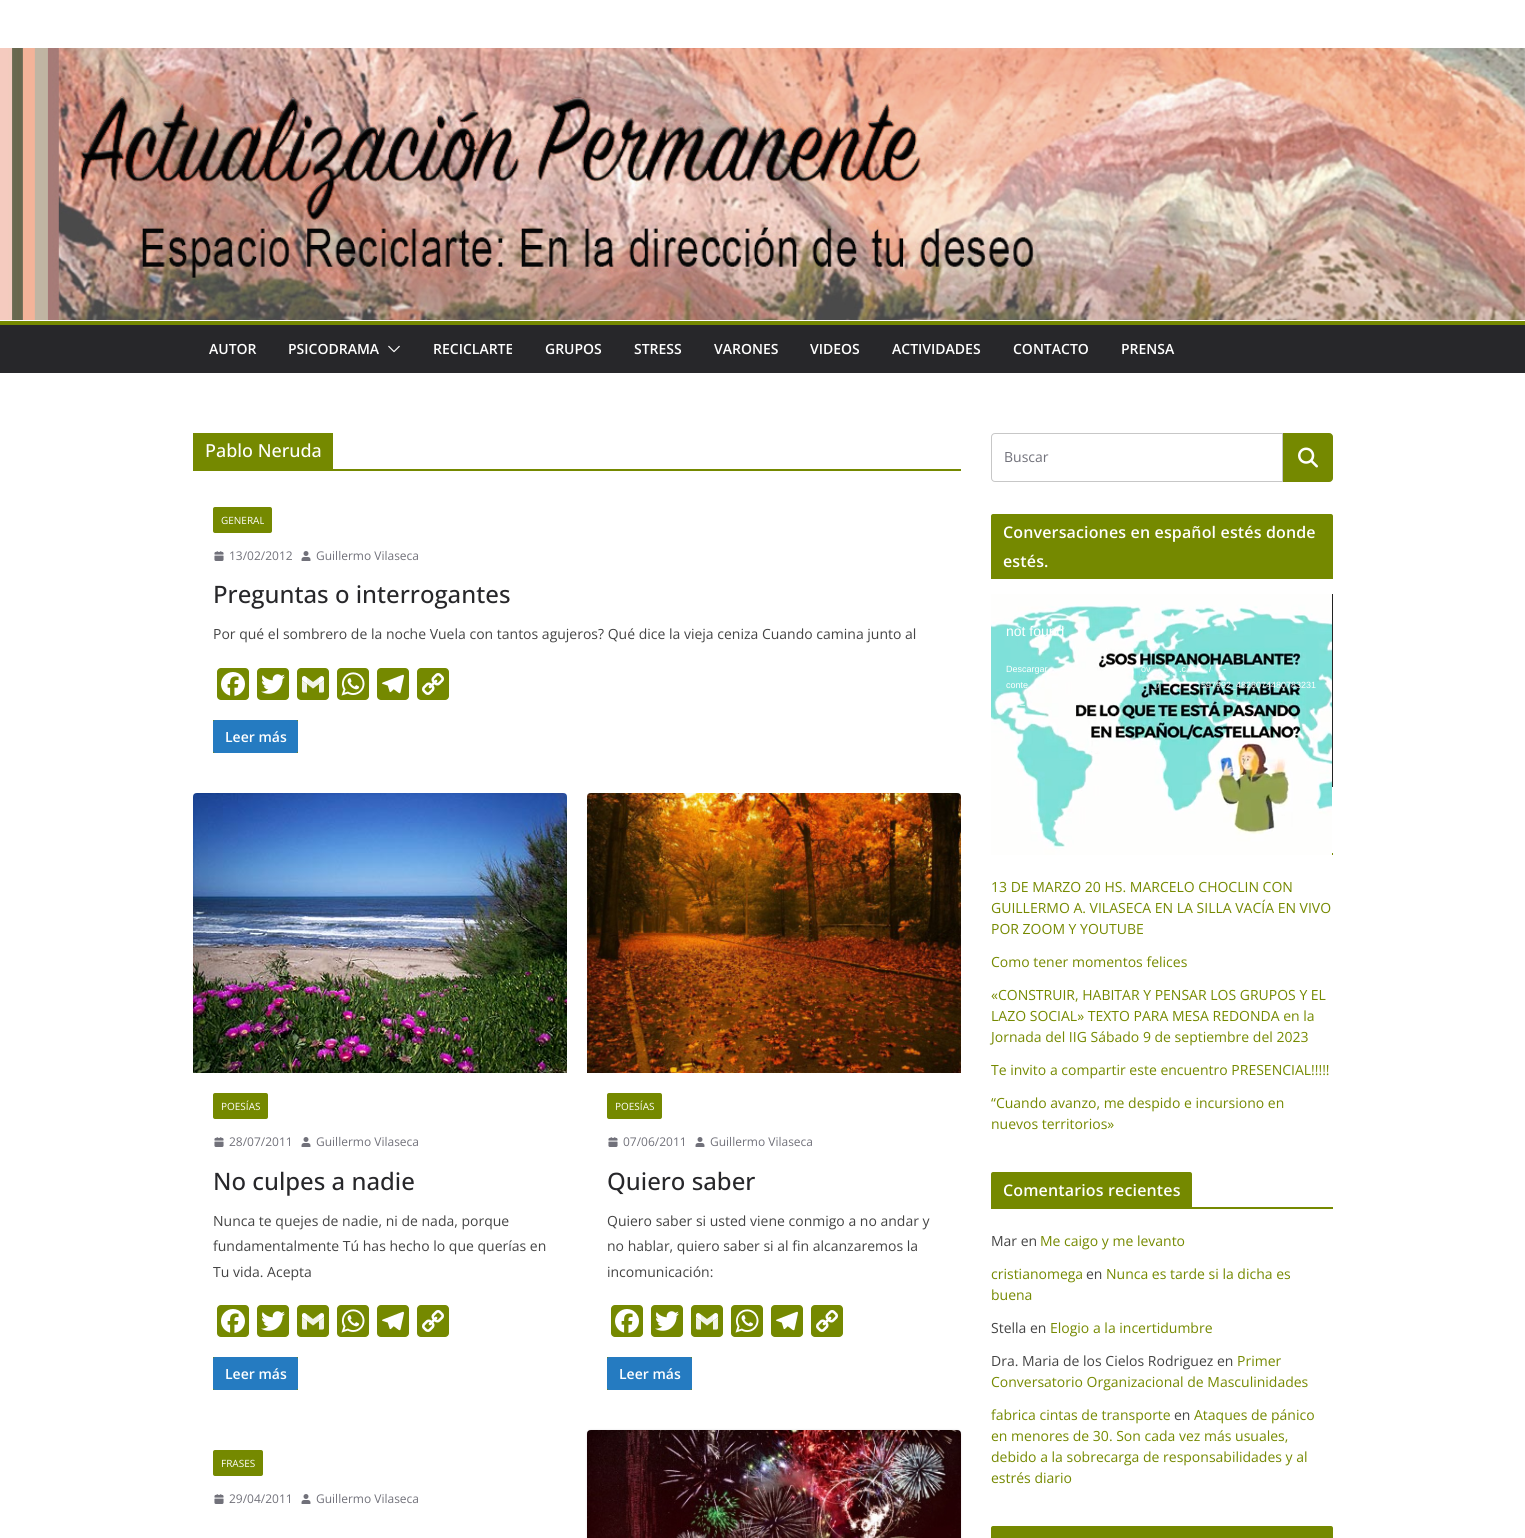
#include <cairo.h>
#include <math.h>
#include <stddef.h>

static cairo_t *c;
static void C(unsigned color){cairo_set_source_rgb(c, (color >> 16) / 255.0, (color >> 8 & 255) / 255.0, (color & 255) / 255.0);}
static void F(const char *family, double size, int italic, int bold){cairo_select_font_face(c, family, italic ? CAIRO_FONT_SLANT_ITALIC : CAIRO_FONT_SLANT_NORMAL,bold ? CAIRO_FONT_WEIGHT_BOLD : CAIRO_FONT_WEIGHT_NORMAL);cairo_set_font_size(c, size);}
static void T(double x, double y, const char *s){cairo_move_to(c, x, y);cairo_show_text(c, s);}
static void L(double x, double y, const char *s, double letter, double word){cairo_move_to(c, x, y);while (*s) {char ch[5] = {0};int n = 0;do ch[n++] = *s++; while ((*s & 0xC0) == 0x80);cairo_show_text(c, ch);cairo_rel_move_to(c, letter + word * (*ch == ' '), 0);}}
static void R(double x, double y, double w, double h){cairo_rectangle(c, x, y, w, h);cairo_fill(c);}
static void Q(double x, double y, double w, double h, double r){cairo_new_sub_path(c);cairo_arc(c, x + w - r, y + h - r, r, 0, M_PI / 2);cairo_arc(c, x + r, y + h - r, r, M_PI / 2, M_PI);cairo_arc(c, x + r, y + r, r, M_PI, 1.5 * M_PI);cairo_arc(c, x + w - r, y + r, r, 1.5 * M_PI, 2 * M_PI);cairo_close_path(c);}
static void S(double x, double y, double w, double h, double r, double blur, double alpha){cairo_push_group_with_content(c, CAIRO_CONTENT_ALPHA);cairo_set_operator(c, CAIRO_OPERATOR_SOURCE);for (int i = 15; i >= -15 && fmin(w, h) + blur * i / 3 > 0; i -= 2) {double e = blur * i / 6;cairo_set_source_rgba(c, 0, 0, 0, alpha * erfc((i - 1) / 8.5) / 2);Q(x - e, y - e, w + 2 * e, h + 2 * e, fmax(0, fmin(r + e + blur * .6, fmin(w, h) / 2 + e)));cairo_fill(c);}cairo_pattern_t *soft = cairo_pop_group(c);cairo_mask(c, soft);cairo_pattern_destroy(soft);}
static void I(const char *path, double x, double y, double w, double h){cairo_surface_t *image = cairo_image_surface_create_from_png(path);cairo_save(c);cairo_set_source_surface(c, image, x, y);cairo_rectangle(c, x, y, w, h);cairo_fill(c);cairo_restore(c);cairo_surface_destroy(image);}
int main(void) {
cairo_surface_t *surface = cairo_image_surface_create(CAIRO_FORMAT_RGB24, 1525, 1538);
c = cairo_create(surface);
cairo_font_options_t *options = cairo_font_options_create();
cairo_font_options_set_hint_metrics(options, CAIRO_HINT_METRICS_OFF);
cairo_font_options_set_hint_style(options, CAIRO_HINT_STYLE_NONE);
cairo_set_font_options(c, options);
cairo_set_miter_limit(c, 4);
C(0xffffff);
cairo_paint(c);
I("1.png",0,48,1525,272);
C(0x27272a);
R(0,325,1525,48);
C(0x758900);
R(0,321,1525,4);
F("Open Sans SemiBold",14,0,0);
C(0xffffff);
T(209,354,"AUTOR");
T(288,354,"PSICODRAMA");
I("2.png",388,345,12,8);
T(433,354,"RECICLARTE");
T(545,354,"GRUPOS");
T(634,354,"STRESS");
T(714,354,"VARONES");
T(810,354,"VIDEOS");
T(892,354,"ACTIVIDADES");
T(1013,354,"CONTACTO");
T(1121,354,"PRENSA");
C(0x758900);
R(193,469,768,2);
R(193,433,140,36);
F("Open Sans Medium",18,0,0);
C(0xffffff);
T(205,457,"Pablo Neruda");
C(0x758900);
Q(213,507,59,26,2);
cairo_fill(c);
F("Open Sans",10,0,0);
C(0xffffff);
T(221,524,"GENERAL");
I("3.png",214,551,10,10);
F("Open Sans",12,0,0);
C(0x71717a);
T(229,560,"13/02/2012");
I("4.png",301,551,10,10);
T(316,560,"Guillermo Vilaseca");
F("Open Sans Medium",24,0,0);
C(0x27272a);
T(213,603,"Preguntas o interrogantes");
F("Open Sans",14,0,0);
C(0x444444);
T(213,639,"Por qué el sombrero de la noche Vuela con tantos agujeros? Qué dice la vieja ceniza Cuando camina junto al");
C(0x758900);
Q(217,668,32,32,4);
cairo_fill(c);
I("5.png",221,672,24,24);
Q(257,668,32,32,4);
cairo_fill(c);
I("6.png",261,674,24,20);
Q(297,668,32,32,4);
cairo_fill(c);
I("7.png",302,676,22,17);
Q(337,668,32,32,4);
cairo_fill(c);
I("8.png",341,672,24,24);
Q(377,668,32,32,4);
cairo_fill(c);
I("9.png",382,674,22,20);
Q(417,668,32,32,4);
cairo_fill(c);
I("10.png",422,673,22,22);
R(213,720,85,33);
C(0x257bc1);
Q(213,720,85,33,2);
cairo_fill(c);
F("Open Sans SemiBold",14,0,0);
C(0xffffff);
T(225,742,"Leer más");
I("11.png",193,793,374,280);
C(0x758900);
Q(213,1093,55,26,2);
cairo_fill(c);
F("Open Sans",10,0,0);
C(0xffffff);
T(221,1110,"POESÍAS");
I("3.png",214,1137,10,10);
F("Open Sans",12,0,0);
C(0x71717a);
T(229,1146,"28/07/2011");
I("4.png",301,1137,10,10);
T(316,1146,"Guillermo Vilaseca");
F("Open Sans Medium",24,0,0);
C(0x27272a);
T(213,1190,"No culpes a nadie");
F("Open Sans",14,0,0);
C(0x444444);
T(213,1226,"Nunca te quejes de nadie, ni de nada, porque");
T(213,1251,"fundamentalmente Tú has hecho lo que querías en");
T(213,1277,"Tu vida. Acepta");
C(0x758900);
Q(217,1305,32,32,4);
cairo_fill(c);
I("5.png",221,1309,24,24);
Q(257,1305,32,32,4);
cairo_fill(c);
I("6.png",261,1311,24,20);
Q(297,1305,32,32,4);
cairo_fill(c);
I("7.png",302,1313,22,17);
Q(337,1305,32,32,4);
cairo_fill(c);
I("8.png",341,1309,24,24);
Q(377,1305,32,32,4);
cairo_fill(c);
I("9.png",382,1311,22,20);
Q(417,1305,32,32,4);
cairo_fill(c);
I("10.png",422,1310,22,22);
R(213,1357,85,33);
C(0x257bc1);
Q(213,1357,85,33,2);
cairo_fill(c);
F("Open Sans SemiBold",14,0,0);
C(0xffffff);
T(225,1379,"Leer más");
I("12.png",587,793,374,280);
C(0x758900);
Q(607,1093,55,26,2);
cairo_fill(c);
F("Open Sans",10,0,0);
C(0xffffff);
T(615,1110,"POESÍAS");
I("3.png",608,1137,10,10);
F("Open Sans",12,0,0);
C(0x71717a);
T(623,1146,"07/06/2011");
I("4.png",695,1137,10,10);
T(710,1146,"Guillermo Vilaseca");
F("Open Sans Medium",24,0,0);
C(0x27272a);
T(607,1190,"Quiero saber");
F("Open Sans",14,0,0);
C(0x444444);
T(607,1226,"Quiero saber si usted viene conmigo a no andar y");
T(607,1251,"no hablar, quiero saber si al fin alcanzaremos la");
T(607,1277,"incomunicación:");
C(0x758900);
Q(611,1305,32,32,4);
cairo_fill(c);
I("5.png",615,1309,24,24);
Q(651,1305,32,32,4);
cairo_fill(c);
I("6.png",655,1311,24,20);
Q(691,1305,32,32,4);
cairo_fill(c);
I("7.png",696,1313,22,17);
Q(731,1305,32,32,4);
cairo_fill(c);
I("8.png",735,1309,24,24);
Q(771,1305,32,32,4);
cairo_fill(c);
I("9.png",776,1311,22,20);
Q(811,1305,32,32,4);
cairo_fill(c);
I("10.png",816,1310,22,22);
R(607,1357,85,33);
C(0x257bc1);
Q(607,1357,85,33,2);
cairo_fill(c);
F("Open Sans SemiBold",14,0,0);
C(0xffffff);
T(619,1379,"Leer más");
C(0x758900);
Q(213,1450,50,26,2);
cairo_fill(c);
F("Open Sans",10,0,0);
C(0xffffff);
T(221,1467,"FRASES");
I("3.png",214,1494,10,10);
F("Open Sans",12,0,0);
C(0x71717a);
T(229,1503,"29/04/2011");
I("4.png",301,1494,10,10);
T(316,1503,"Guillermo Vilaseca");
C(0xe4e4e7);
S(587,1430,374,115,4,1,1);
I("13.png",587,1430,374,108);
cairo_new_path(c);
cairo_move_to(c,995,433.5);
cairo_line_to(c,1282.5,433.5);
cairo_line_to(c,1282.5,481.5);
cairo_line_to(c,995,481.5);
cairo_curve_to(c,993,481.5,991.5,480,991.5,478);
cairo_line_to(c,991.5,437);
cairo_curve_to(c,991.5,435,993,433.5,995,433.5);
cairo_close_path(c);
C(0xc7c7c7);
cairo_set_line_width(c,1);
cairo_stroke(c);
F("Open Sans",14,0,0);
C(0x71717a);
T(1004,462,"Buscar");
C(0x758900);
cairo_new_path(c);
cairo_move_to(c,1283.5,433.5);
cairo_line_to(c,1329,433.5);
cairo_curve_to(c,1331,433.5,1332.5,435,1332.5,437);
cairo_line_to(c,1332.5,478);
cairo_curve_to(c,1332.5,480,1331,481.5,1329,481.5);
cairo_line_to(c,1283.5,481.5);
cairo_close_path(c);
cairo_fill_preserve(c);
cairo_stroke(c);
I("14.png",1298,447,20,21);
R(991,577,342,2);
cairo_new_path(c);
cairo_move_to(c,993,514);
cairo_line_to(c,1331,514);
cairo_curve_to(c,1332,514,1333,515,1333,516);
cairo_line_to(c,1333,577);
cairo_line_to(c,991,577);
cairo_line_to(c,991,516);
cairo_curve_to(c,991,515,992,514,993,514);
cairo_close_path(c);
cairo_fill(c);
F("Open Sans SemiBold",16,0,0);
C(0xffffff);
L(1003,538,"Conversaciones en español estés donde",.15,0);
L(1003,567,"estés.",.15,0);
C(0x222222);
R(1332,594,1,193);
I("15.png",991,594,341,261);
F("Liberation Sans",14,0,0);
C(0xffffff);
T(1006,636,"not found");
F("Liberation Sans",9,0,0);
T(1006,672,"Descargar");
T(1141,672,"ov");
T(1179,672,".c");
T(1209,672,"/");
T(1223,672,"-");
T(1006,688,"conte");
T(1151,688,"_7");
T(1201,688,"597992_4828074480783231");
T(1020,704,"_");
C(0x758900);
R(1332,853,1,2);
F("Open Sans",14,0,0);
T(991,892,"13 DE MARZO 20 HS. MARCELO CHOCLIN CON");
T(991,913,"GUILLERMO A. VILASECA EN LA SILLA VACÍA EN VIVO");
T(991,934,"POR ZOOM Y YOUTUBE");
T(991,967,"Como tener momentos felices");
T(991,1000,"«CONSTRUIR, HABITAR Y PENSAR LOS GRUPOS Y EL");
T(991,1021,"LAZO SOCIAL» TEXTO PARA MESA REDONDA en la");
T(991,1042,"Jornada del IIG Sábado 9 de septiembre del 2023");
T(991,1075,"Te invito a compartir este encuentro PRESENCIAL!!!!!");
T(991,1108,"“Cuando avanzo, me despido e incursiono en");
T(991,1129,"nuevos territorios»");
R(991,1207,342,2);
cairo_new_path(c);
cairo_move_to(c,993,1172);
cairo_line_to(c,1190,1172);
cairo_curve_to(c,1191,1172,1192,1173,1192,1174);
cairo_line_to(c,1192,1207);
cairo_line_to(c,991,1207);
cairo_line_to(c,991,1174);
cairo_curve_to(c,991,1173,992,1172,993,1172);
cairo_close_path(c);
cairo_fill(c);
F("Open Sans SemiBold",16,0,0);
C(0xffffff);
L(1003,1196,"Comentarios recientes",.15,0);
F("Open Sans",14,0,0);
C(0x444444);
T(991,1246,"Mar en");
C(0x758900);
T(1040,1246,"Me caigo y me levanto");
T(991,1279,"cristianomega");
C(0x444444);
T(1086,1279,"en");
C(0x758900);
T(1106,1279,"Nunca es tarde si la dicha es");
T(991,1300,"buena");
C(0x444444);
T(991,1333,"Stella en");
C(0x758900);
T(1050,1333,"Elogio a la incertidumbre");
C(0x444444);
T(991,1366,"Dra. Maria de los Cielos Rodriguez en");
C(0x758900);
T(1237,1366,"Primer");
T(991,1387,"Conversatorio Organizacional de Masculinidades");
T(991,1420,"fabrica cintas de transporte");
C(0x444444);
T(1174,1420,"en");
C(0x758900);
T(1194,1420,"Ataques de pánico");
T(991,1441,"en menores de 30. Son cada vez más usuales,");
T(991,1462,"debido a la sobrecarga de responsabilidades y al");
T(991,1483,"estrés diario");
cairo_new_path(c);
cairo_move_to(c,993,1526);
cairo_line_to(c,1331,1526);
cairo_curve_to(c,1332,1526,1333,1527,1333,1528);
cairo_line_to(c,1333,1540);
cairo_line_to(c,991,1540);
cairo_line_to(c,991,1528);
cairo_curve_to(c,991,1527,992,1526,993,1526);
cairo_close_path(c);
cairo_fill(c);
cairo_surface_write_to_png(surface, "o.png");
cairo_font_options_destroy(options);
cairo_destroy(c);
cairo_surface_destroy(surface);
return 0;
}
